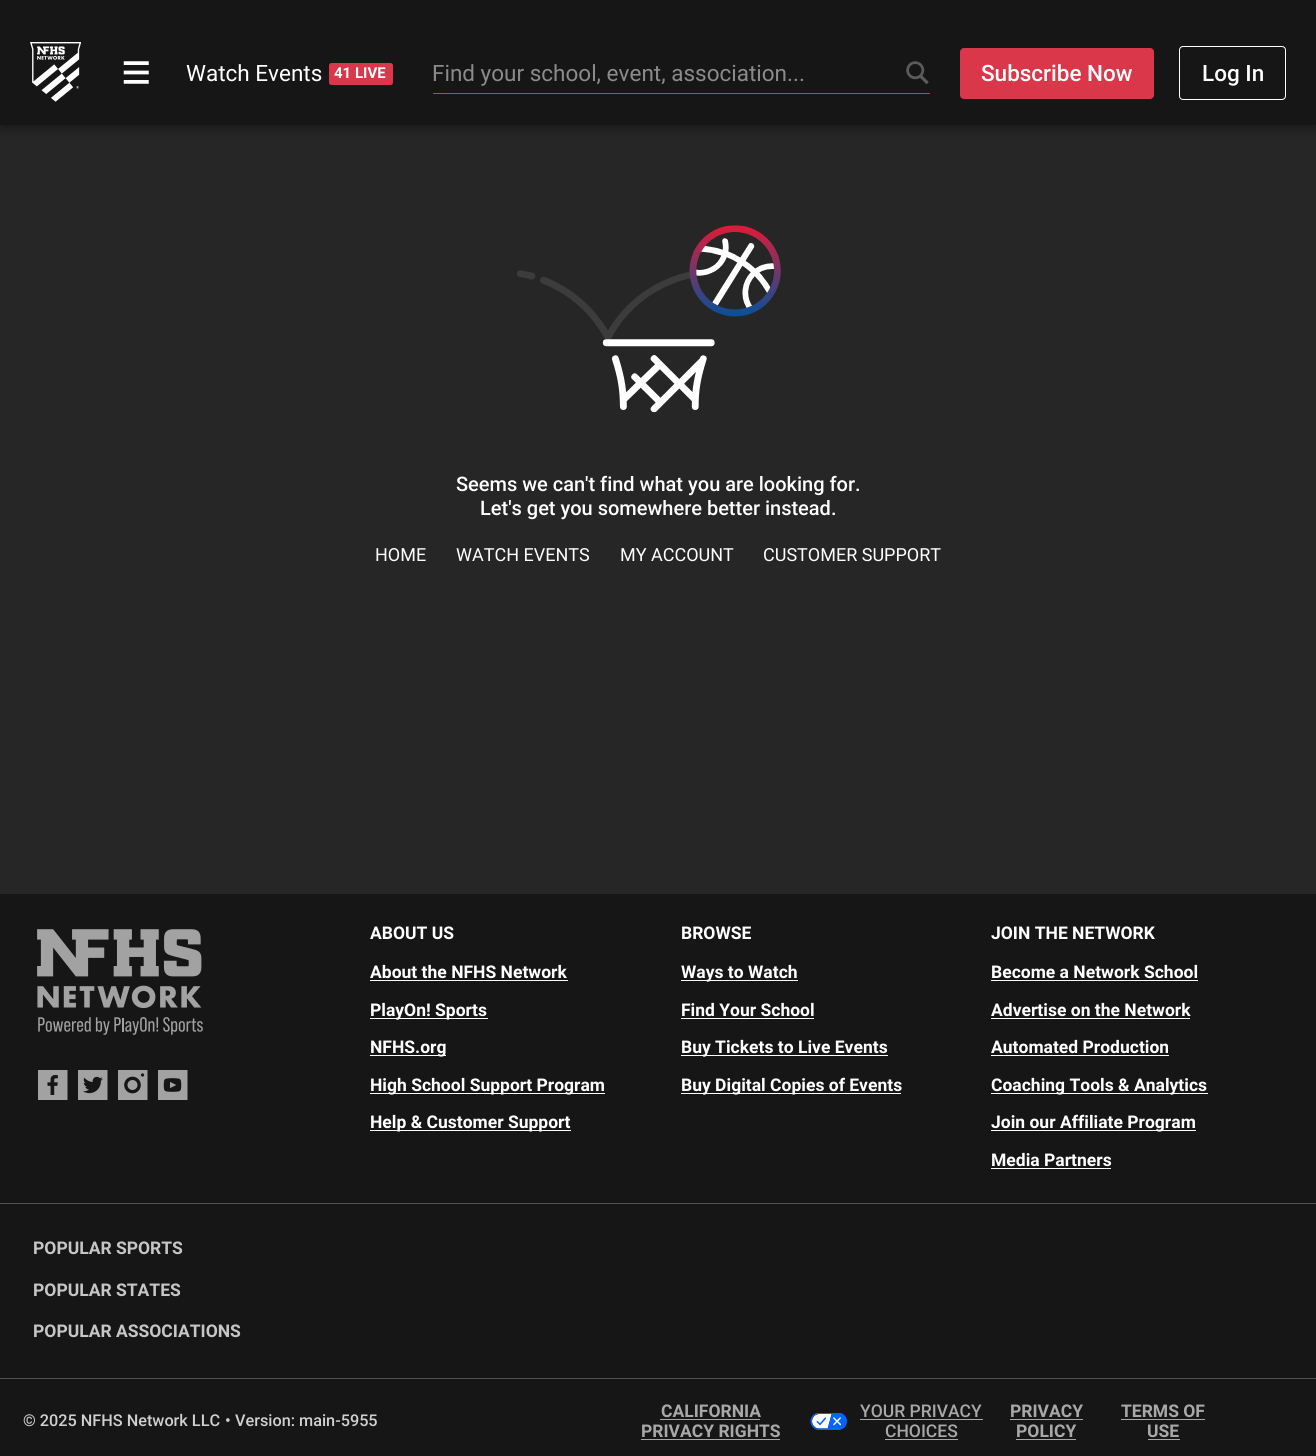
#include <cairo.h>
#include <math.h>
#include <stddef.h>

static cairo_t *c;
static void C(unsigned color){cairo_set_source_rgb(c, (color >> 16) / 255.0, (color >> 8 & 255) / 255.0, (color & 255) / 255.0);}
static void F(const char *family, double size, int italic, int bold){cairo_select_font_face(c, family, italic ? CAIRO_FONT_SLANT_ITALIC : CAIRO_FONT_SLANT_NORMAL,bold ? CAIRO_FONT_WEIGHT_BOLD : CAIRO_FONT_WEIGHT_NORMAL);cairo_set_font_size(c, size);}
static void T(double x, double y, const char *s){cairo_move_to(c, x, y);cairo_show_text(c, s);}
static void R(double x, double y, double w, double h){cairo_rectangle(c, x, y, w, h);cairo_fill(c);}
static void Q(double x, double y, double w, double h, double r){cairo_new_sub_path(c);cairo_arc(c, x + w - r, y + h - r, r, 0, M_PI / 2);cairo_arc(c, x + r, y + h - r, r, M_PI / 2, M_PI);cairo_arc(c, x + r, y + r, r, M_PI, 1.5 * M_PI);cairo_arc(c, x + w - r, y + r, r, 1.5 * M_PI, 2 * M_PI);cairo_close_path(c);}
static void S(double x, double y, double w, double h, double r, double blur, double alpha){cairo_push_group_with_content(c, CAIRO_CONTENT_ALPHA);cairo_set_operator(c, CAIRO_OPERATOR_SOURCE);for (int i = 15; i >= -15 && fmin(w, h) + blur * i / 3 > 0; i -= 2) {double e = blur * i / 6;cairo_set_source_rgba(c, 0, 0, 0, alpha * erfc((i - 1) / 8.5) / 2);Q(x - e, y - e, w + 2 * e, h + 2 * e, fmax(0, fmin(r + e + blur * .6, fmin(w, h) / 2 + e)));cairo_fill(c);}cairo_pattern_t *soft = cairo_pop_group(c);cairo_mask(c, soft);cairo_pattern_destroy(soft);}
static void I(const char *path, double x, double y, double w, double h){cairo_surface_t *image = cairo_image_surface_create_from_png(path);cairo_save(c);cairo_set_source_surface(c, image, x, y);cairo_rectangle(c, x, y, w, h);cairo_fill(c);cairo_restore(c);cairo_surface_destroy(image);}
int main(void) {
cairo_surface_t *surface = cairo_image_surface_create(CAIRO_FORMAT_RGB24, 1316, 1456);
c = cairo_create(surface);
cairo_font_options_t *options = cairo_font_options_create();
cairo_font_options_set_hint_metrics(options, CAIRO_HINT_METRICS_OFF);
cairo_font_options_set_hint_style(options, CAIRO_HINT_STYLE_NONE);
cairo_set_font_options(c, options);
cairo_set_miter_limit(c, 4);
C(0x262626);
cairo_paint(c);
C(0x000000);
S(0,5,1316,125,0,4.5,.3);
C(0x161616);
R(0,0,1316,125);
I("1.png",30,42,51,60);
I("2.png",123,61,26,23);
F("Roboto",22.5,0,0);
C(0xffffff);
T(186,81,"Watch Events");
C(0xda374a);
Q(329,63,64,22,2.5);
cairo_fill(c);
F("Roboto",15,0,1);
C(0xffffff);
T(334,78,"41 LIVE");
C(0xda374a);
R(433,93,497,1);
F("Roboto",22.5,0,0);
C(0x8b8b8b);
T(432,81,"Find your school, event, association...");
I("3.png",906,61,23,24);
C(0xda374a);
Q(960,48,194,51,4);
cairo_fill(c);
F("Roboto Medium",22.5,0,0);
C(0xffffff);
T(981,81,"Subscribe Now");
Q(1179.5,46.5,106,53,3.5);
cairo_set_line_width(c,1);
cairo_stroke(c);
T(1202,81,"Log In");
I("4.png",517,225,264,188);
F("Roboto Medium",20,0,0);
T(456,491,"Seems we can't find what you are looking for.");
T(480,515,"Let's get you somewhere better instead.");
F("Roboto",18,0,0);
T(375,561,"HOME");
T(456,561,"WATCH EVENTS");
T(620,561,"MY ACCOUNT");
T(763,561,"CUSTOMER SUPPORT");
C(0x161616);
R(0,894,1316,562);
I("5.png",37,929,166,106);
I("6.png",38,1070,30,30);
I("7.png",78,1070,30,30);
I("8.png",118,1070,30,30);
I("9.png",158,1070,30,30);
F("Roboto",17.5,0,1);
C(0xffffff);
T(370,939,"ABOUT US");
T(370,978,"About the NFHS Network");
R(370,980,198,1);
R(370,1018,118,1);
T(370,1016,"PlayOn! Sports");
R(370,1055,76,1);
T(370,1053,"NFHS.org");
R(370,1093,235,1);
T(370,1091,"High School Support Program");
R(370,1130,201,1);
T(370,1128,"Help & Customer Support");
T(681,939,"BROWSE");
R(681,980,117,1);
T(681,978,"Ways to Watch");
T(681,1016,"Find Your School");
R(681,1018,133,1);
R(681,1055,207,1);
T(681,1053,"Buy Tickets to Live Events");
R(681,1093,220,1);
T(681,1091,"Buy Digital Copies of Events");
T(991,939,"JOIN THE NETWORK");
T(991,978,"Become a Network School");
R(991,980,207,1);
T(991,1016,"Advertise on the Network");
R(991,1018,199,1);
T(991,1053,"Automated Production");
R(991,1055,178,1);
R(991,1093,217,1);
T(991,1091,"Coaching Tools & Analytics");
R(991,1130,205,1);
T(991,1128,"Join our Affiliate Program");
T(991,1166,"Media Partners");
R(991,1168,120,1);
C(0x525252);
R(0,1203,1316,1);
C(0xc6c6c6);
T(33,1254,"POPULAR SPORTS");
T(33,1296,"POPULAR STATES");
T(33,1337,"POPULAR ASSOCIATIONS");
C(0x525252);
R(0,1378,1316,1);
F("Roboto Medium",16.25,0,0);
C(0xd0d0d0);
T(23,1426,"© 2025 NFHS Network LLC");
T(225,1426,"•");
T(235,1426,"Version: main-5955");
F("Roboto",17.5,0,1);
C(0xa8a8a8);
T(661,1417,"CALIFORNIA");
R(660,1419,100,1);
T(641,1437,"PRIVACY RIGHTS");
R(641,1439,139,1);
I("10.png",810,1413,37,17);
F("Roboto Medium",17.5,0,0);
T(860,1417,"YOUR PRIVACY");
R(860,1419,123,1);
T(885,1437,"CHOICES");
R(885,1439,73,1);
F("Roboto",17.5,0,1);
T(1010,1417,"PRIVACY");
R(1010,1419,73,1);
T(1016,1437,"POLICY");
R(1016,1439,60,1);
T(1121,1417,"TERMS OF");
R(1121,1419,84,1);
T(1147,1437,"USE");
R(1148,1439,32,1);
cairo_surface_write_to_png(surface, "o.png");
cairo_font_options_destroy(options);
cairo_destroy(c);
cairo_surface_destroy(surface);
return 0;
}
